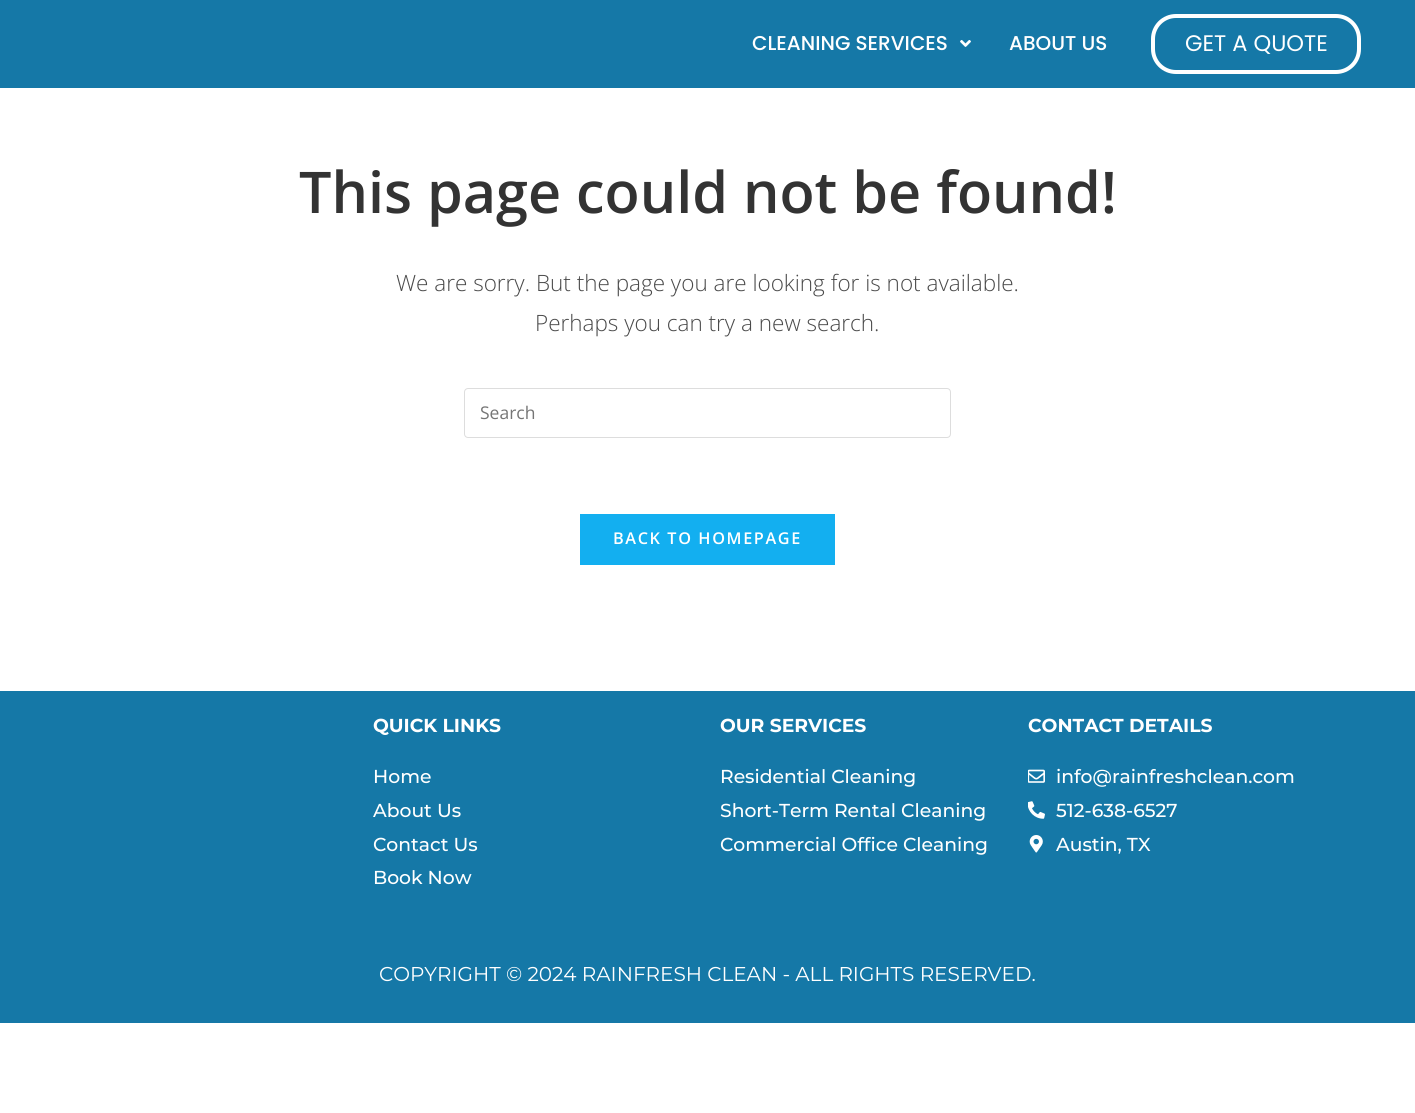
#include <cairo.h>
#include <math.h>
#include <stddef.h>

static cairo_t *c;
static void C(unsigned color){cairo_set_source_rgb(c, (color >> 16) / 255.0, (color >> 8 & 255) / 255.0, (color & 255) / 255.0);}
static void F(const char *family, double size, int italic, int bold){cairo_select_font_face(c, family, italic ? CAIRO_FONT_SLANT_ITALIC : CAIRO_FONT_SLANT_NORMAL,bold ? CAIRO_FONT_WEIGHT_BOLD : CAIRO_FONT_WEIGHT_NORMAL);cairo_set_font_size(c, size);}
static void T(double x, double y, const char *s){cairo_move_to(c, x, y);cairo_show_text(c, s);}
static void L(double x, double y, const char *s, double letter, double word){cairo_move_to(c, x, y);while (*s) {char ch[5] = {0};int n = 0;do ch[n++] = *s++; while ((*s & 0xC0) == 0x80);cairo_show_text(c, ch);cairo_rel_move_to(c, letter + word * (*ch == ' '), 0);}}
static void R(double x, double y, double w, double h){cairo_rectangle(c, x, y, w, h);cairo_fill(c);}
static void Q(double x, double y, double w, double h, double r){cairo_new_sub_path(c);cairo_arc(c, x + w - r, y + h - r, r, 0, M_PI / 2);cairo_arc(c, x + r, y + h - r, r, M_PI / 2, M_PI);cairo_arc(c, x + r, y + r, r, M_PI, 1.5 * M_PI);cairo_arc(c, x + w - r, y + r, r, 1.5 * M_PI, 2 * M_PI);cairo_close_path(c);}
static void I(const char *path, double x, double y, double w, double h){cairo_surface_t *image = cairo_image_surface_create_from_png(path);cairo_save(c);cairo_set_source_surface(c, image, x, y);cairo_rectangle(c, x, y, w, h);cairo_fill(c);cairo_restore(c);cairo_surface_destroy(image);}
int main(void) {
cairo_surface_t *surface = cairo_image_surface_create(CAIRO_FORMAT_RGB24, 1415, 1113);
c = cairo_create(surface);
cairo_font_options_t *options = cairo_font_options_create();
cairo_font_options_set_hint_metrics(options, CAIRO_HINT_METRICS_OFF);
cairo_font_options_set_hint_style(options, CAIRO_HINT_STYLE_NONE);
cairo_set_font_options(c, options);
cairo_set_miter_limit(c, 4);
C(0xffffff);
cairo_paint(c);
C(0x1578a7);
R(0,0,1415,88);
F("Poppins Medium",20,0,0);
C(0xffffff);
T(752,50,"CLEANING SERVICES");
I("1.png",960,40,11,7);
T(1009,50,"ABOUT US");
Q(1153,16,206,56,23);
cairo_set_line_width(c,4);
cairo_stroke(c);
F("Poppins",22.5,0,0);
T(1185,51,"GET A QUOTE");
F("Open Sans SemiBold",57.5,0,0);
C(0x333333);
T(299,213,"This page could not be found!");
F("Open Sans Light",22.5,0,0);
C(0x4a4a4a);
T(396,291,"We are sorry. But the page you are looking for is not available.");
T(535,331,"Perhaps you can try a new search.");
Q(464.5,388.5,486,49,3.5);
C(0xdddddd);
cairo_set_line_width(c,1);
cairo_stroke(c);
F("Open Sans",17.5,0,0);
C(0x757575);
T(480,419,"Search");
C(0x13aff0);
R(580,514,255,51);
F("Open Sans SemiBold",16.25,0,0);
C(0xffffff);
L(613,544,"BACK TO HOMEPAGE",1.6,0);
C(0x1578a7);
R(0,691,1415,332);
F("Montserrat",18.75,0,1);
C(0xffffff);
T(373,732,"QUICK LINKS");
F("Montserrat Medium",18.75,0,0);
T(373,783,"Home");
T(373,817,"About Us");
T(373,851,"Contact Us");
T(373,884,"Book Now");
F("Montserrat",18.75,0,1);
T(720,732,"OUR SERVICES");
F("Montserrat Medium",18.75,0,0);
T(720,783,"Residential Cleaning");
T(720,817,"Short-Term Rental Cleaning");
T(720,851,"Commercial Office Cleaning");
F("Montserrat",18.75,0,1);
T(1028,732,"CONTACT DETAILS");
I("2.png",1028,769,17,14);
F("Montserrat Medium",18.75,0,0);
T(1056,783,"info@rainfreshclean.com");
I("3.png",1028,801,17,18);
T(1056,817,"512-638-6527");
I("4.png",1029,835,14,18);
T(1056,851,"Austin, TX");
F("Montserrat",20,0,0);
T(379,981,"COPYRIGHT © 2024 RAINFRESH CLEAN - ALL RIGHTS RESERVED.");
cairo_surface_write_to_png(surface, "o.png");
cairo_font_options_destroy(options);
cairo_destroy(c);
cairo_surface_destroy(surface);
return 0;
}
